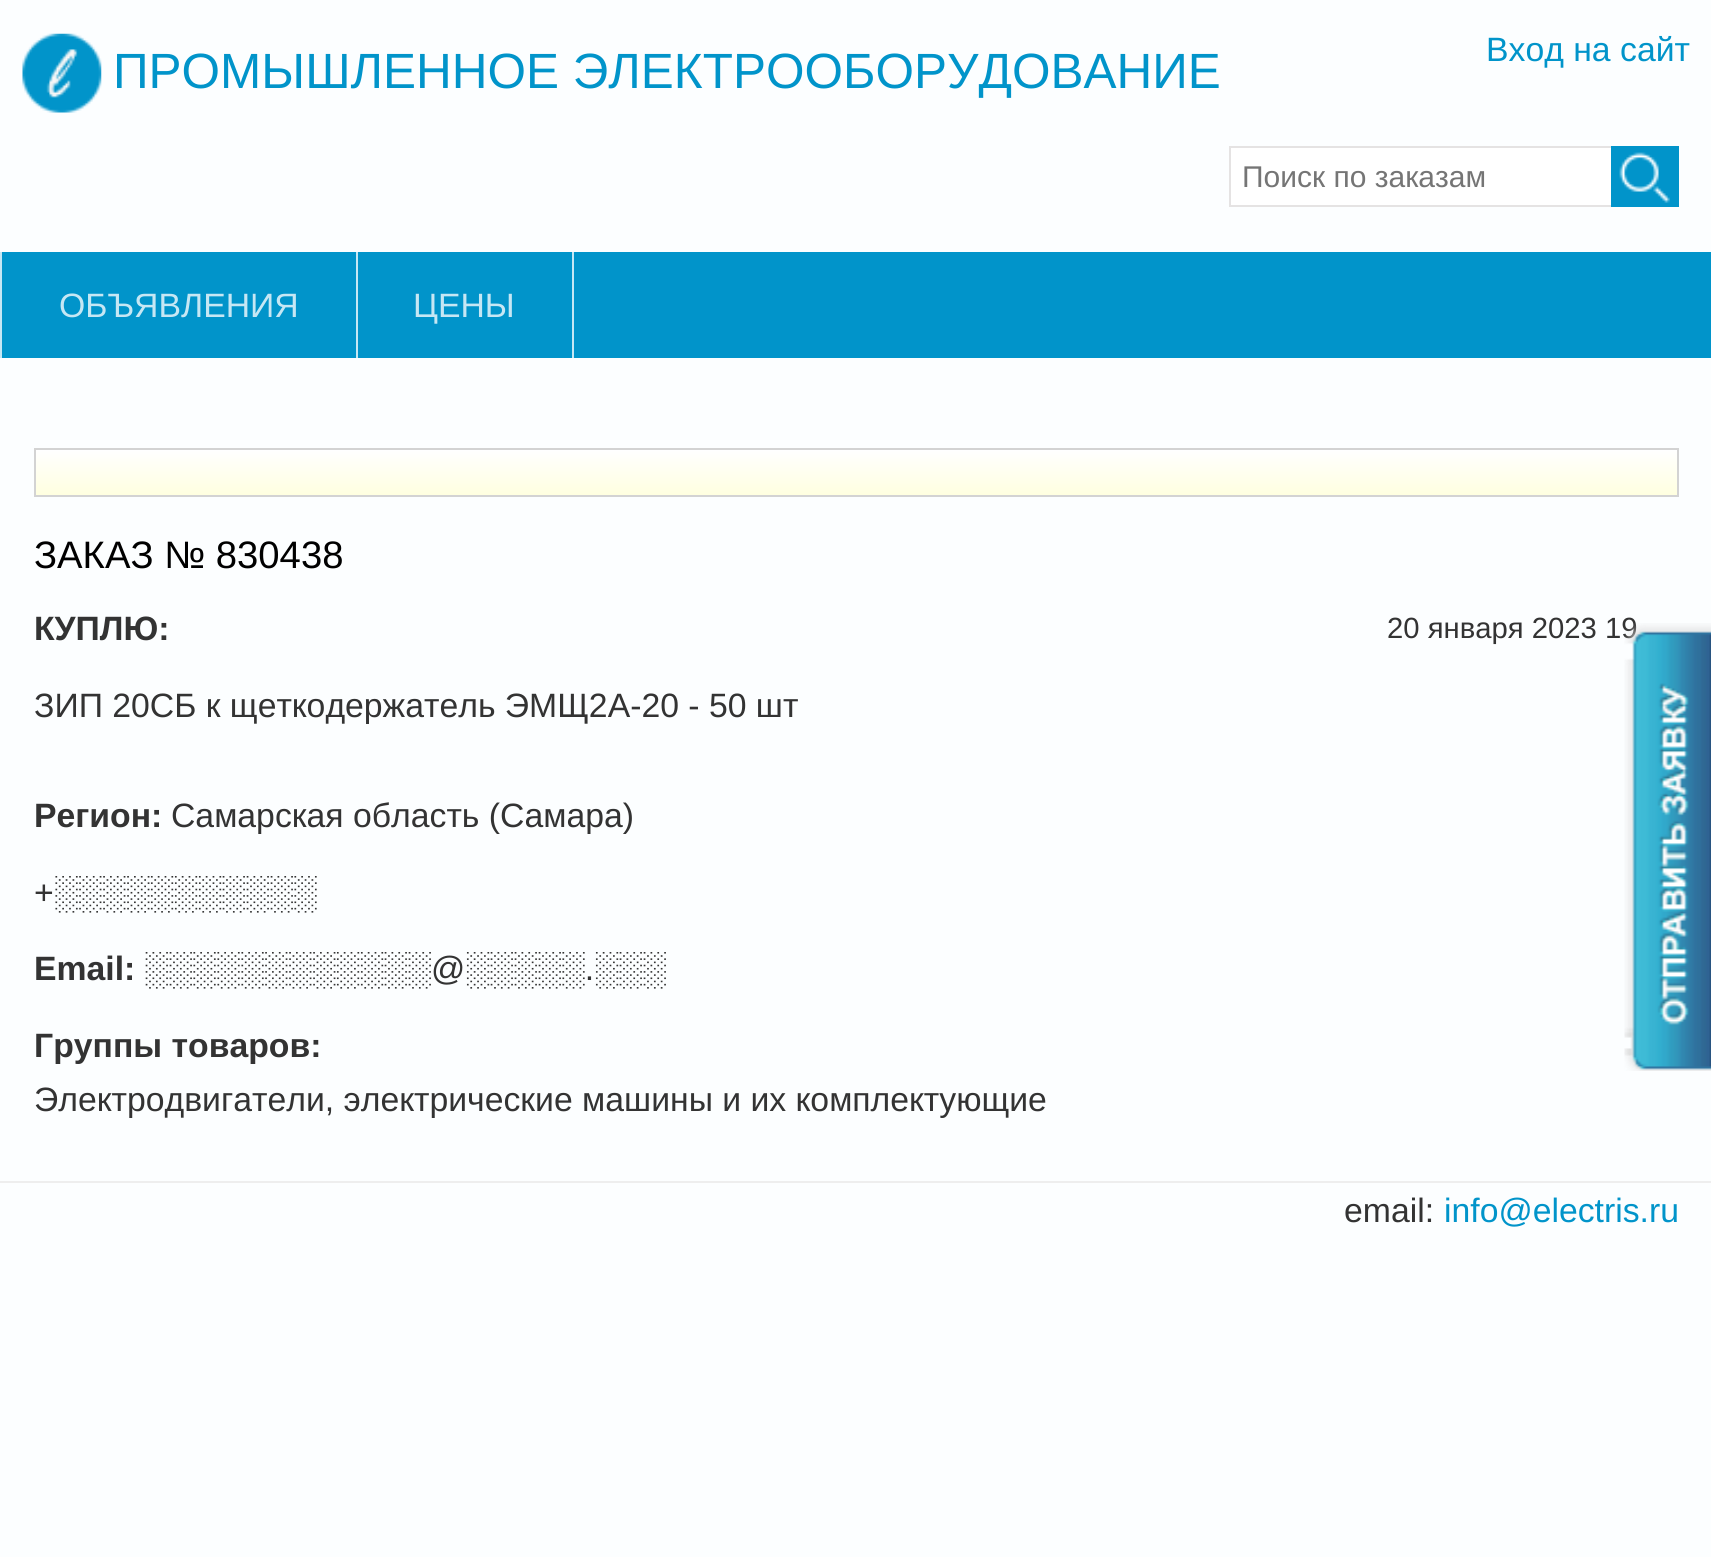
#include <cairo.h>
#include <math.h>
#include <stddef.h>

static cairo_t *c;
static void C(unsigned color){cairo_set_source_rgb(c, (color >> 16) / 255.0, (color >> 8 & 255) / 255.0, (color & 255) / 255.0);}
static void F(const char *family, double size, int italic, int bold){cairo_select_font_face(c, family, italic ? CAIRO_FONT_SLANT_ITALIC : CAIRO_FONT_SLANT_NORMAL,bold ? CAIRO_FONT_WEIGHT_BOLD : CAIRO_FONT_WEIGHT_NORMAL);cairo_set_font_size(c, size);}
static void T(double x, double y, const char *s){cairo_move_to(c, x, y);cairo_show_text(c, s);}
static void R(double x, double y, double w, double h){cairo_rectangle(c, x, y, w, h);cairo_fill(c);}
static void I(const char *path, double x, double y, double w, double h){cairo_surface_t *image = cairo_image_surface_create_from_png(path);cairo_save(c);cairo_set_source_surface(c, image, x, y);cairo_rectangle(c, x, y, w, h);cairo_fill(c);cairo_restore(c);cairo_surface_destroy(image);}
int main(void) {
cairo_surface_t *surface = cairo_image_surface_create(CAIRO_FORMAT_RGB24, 1711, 1557);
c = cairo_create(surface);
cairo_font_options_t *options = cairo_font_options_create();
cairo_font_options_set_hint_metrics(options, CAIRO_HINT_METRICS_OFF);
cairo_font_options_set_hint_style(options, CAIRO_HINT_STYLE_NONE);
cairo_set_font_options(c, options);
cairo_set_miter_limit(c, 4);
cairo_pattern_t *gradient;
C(0xfcfeff);
cairo_paint(c);
I("1.png",22,33,80,80);
F("Liberation Sans",49.5,0,0);
C(0x0194ca);
T(113,88,"ПРОМЫШЛЕННОЕ ЭЛЕКТРООБОРУДОВАНИЕ");
F("Liberation Sans",33.75,0,0);
T(1486,61,"Вход на сайт");
C(0xffffff);
R(1231,148,380,57);
cairo_rectangle(c,1230,147,448,59);
C(0xe5e3e3);
cairo_stroke(c);
F("Liberation Sans",30,0,0);
C(0x757575);
T(1242,187,"Поиск по заказам");
C(0x0194ca);
R(1611,146,68,61);
I("2.png",1619,152,51,51);
R(2,252,1709,106);
C(0xc6e7f4);
R(356,252,2,106);
R(0,252,2,106);
F("Liberation Sans",33.75,0,0);
T(59,317,"ОБЪЯВЛЕНИЯ");
R(572,252,2,106);
T(413,317,"ЦЕНЫ");
gradient = cairo_pattern_create_linear(856,450,856,495);
cairo_pattern_add_color_stop_rgba(gradient,0,1,1,1,1);
cairo_pattern_add_color_stop_rgba(gradient,1,1,1,0.878,1);
cairo_set_source(c,gradient);
cairo_pattern_destroy(gradient);
R(36,450,1641,45);
cairo_rectangle(c,35,449,1643,47);
C(0xd3d3d3);
cairo_stroke(c);
F("Liberation Sans",38.25,0,0);
C(0x000000);
T(34,568,"ЗАКАЗ № 830438");
F("Liberation Sans",33.75,0,1);
C(0x333333);
T(34,640,"КУПЛЮ:");
F("Liberation Sans",29.25,0,0);
T(1387,638,"20 января 2023 19");
F("Liberation Sans",33.75,0,0);
T(34,717,"ЗИП 20СБ к щеткодержатель ЭМЩ2А-20 - 50 шт");
F("Liberation Sans",33.75,0,1);
T(34,827,"Регион:");
F("Liberation Sans",33.75,0,0);
T(171,827,"Самарская область (Самара)");
T(34,904,"+░░░░░░░░░░░");
F("Liberation Sans",33.75,0,1);
T(34,980,"Email:");
F("Liberation Sans",33.75,0,0);
T(144,980,"░░░░░░░░░░░░@░░░░░.░░░");
F("Liberation Sans",33.75,0,1);
T(34,1057,"Группы товаров:");
F("Liberation Sans",33.75,0,0);
T(34,1111,"Электродвигатели, электрические машины и их комплектующие");
I("3.png",1624,623,87,448);
C(0xeeeeee);
R(0,1181,1711,2);
C(0x333333);
T(1344,1222,"email:");
C(0x0194ca);
T(1444,1222,"info@electris.ru");
cairo_surface_write_to_png(surface, "o.png");
cairo_font_options_destroy(options);
cairo_destroy(c);
cairo_surface_destroy(surface);
return 0;
}
